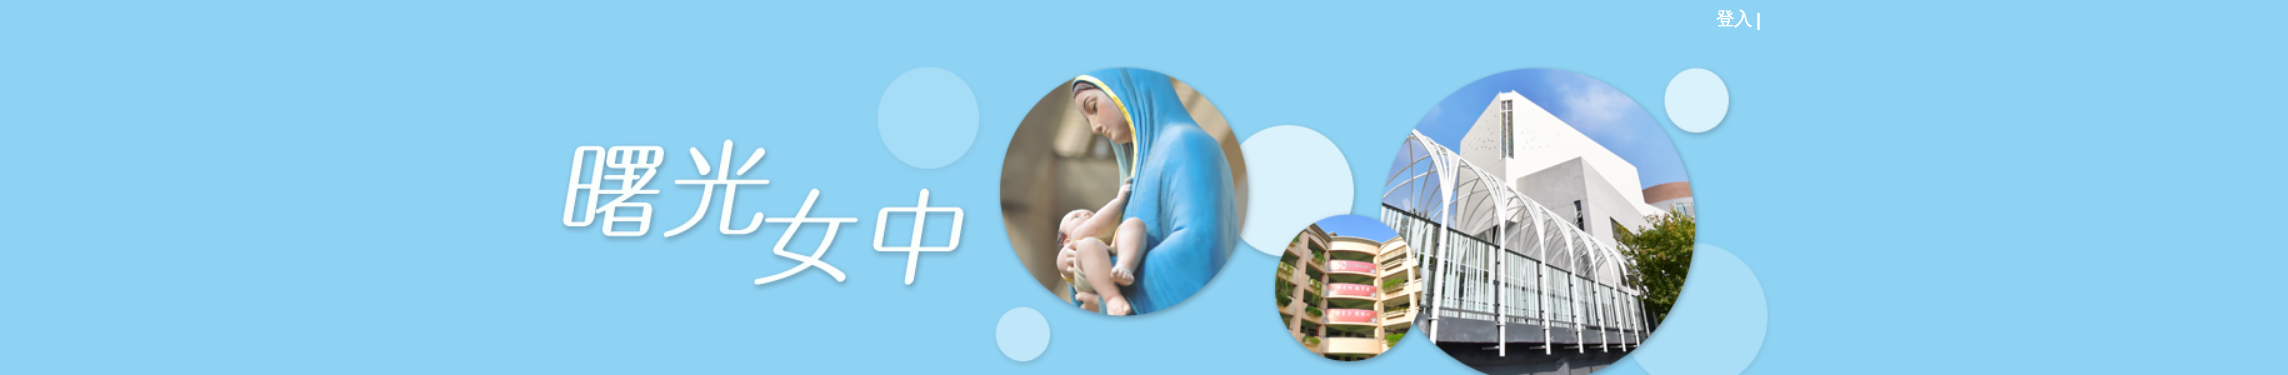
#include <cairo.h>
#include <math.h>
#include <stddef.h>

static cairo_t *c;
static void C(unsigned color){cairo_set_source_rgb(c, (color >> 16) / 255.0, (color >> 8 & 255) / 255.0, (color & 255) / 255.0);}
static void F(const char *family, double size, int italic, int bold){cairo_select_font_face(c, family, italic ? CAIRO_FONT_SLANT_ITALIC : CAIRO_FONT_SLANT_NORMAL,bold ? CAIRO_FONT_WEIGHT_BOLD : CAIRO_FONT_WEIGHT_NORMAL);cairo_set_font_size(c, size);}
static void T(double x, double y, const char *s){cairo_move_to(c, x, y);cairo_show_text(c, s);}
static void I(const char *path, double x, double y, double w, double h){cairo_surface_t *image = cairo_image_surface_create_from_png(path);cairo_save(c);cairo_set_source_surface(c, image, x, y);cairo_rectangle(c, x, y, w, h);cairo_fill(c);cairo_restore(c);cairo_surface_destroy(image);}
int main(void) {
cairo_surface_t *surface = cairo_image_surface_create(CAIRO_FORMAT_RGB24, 2288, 375);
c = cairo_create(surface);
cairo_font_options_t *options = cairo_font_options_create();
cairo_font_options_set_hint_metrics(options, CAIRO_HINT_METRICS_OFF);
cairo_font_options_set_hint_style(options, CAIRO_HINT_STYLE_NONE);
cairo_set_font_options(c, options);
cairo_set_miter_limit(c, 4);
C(0x8fd3f4);
cairo_paint(c);
F("WenQuanYi Zen Hei",18,0,1);
C(0xffffff);
T(1716,25,"登入");
F("Liberation Sans",18,0,1);
T(1756,26,"|");
I("1.png",560,65,1211,310);
cairo_surface_write_to_png(surface, "o.png");
cairo_font_options_destroy(options);
cairo_destroy(c);
cairo_surface_destroy(surface);
return 0;
}
